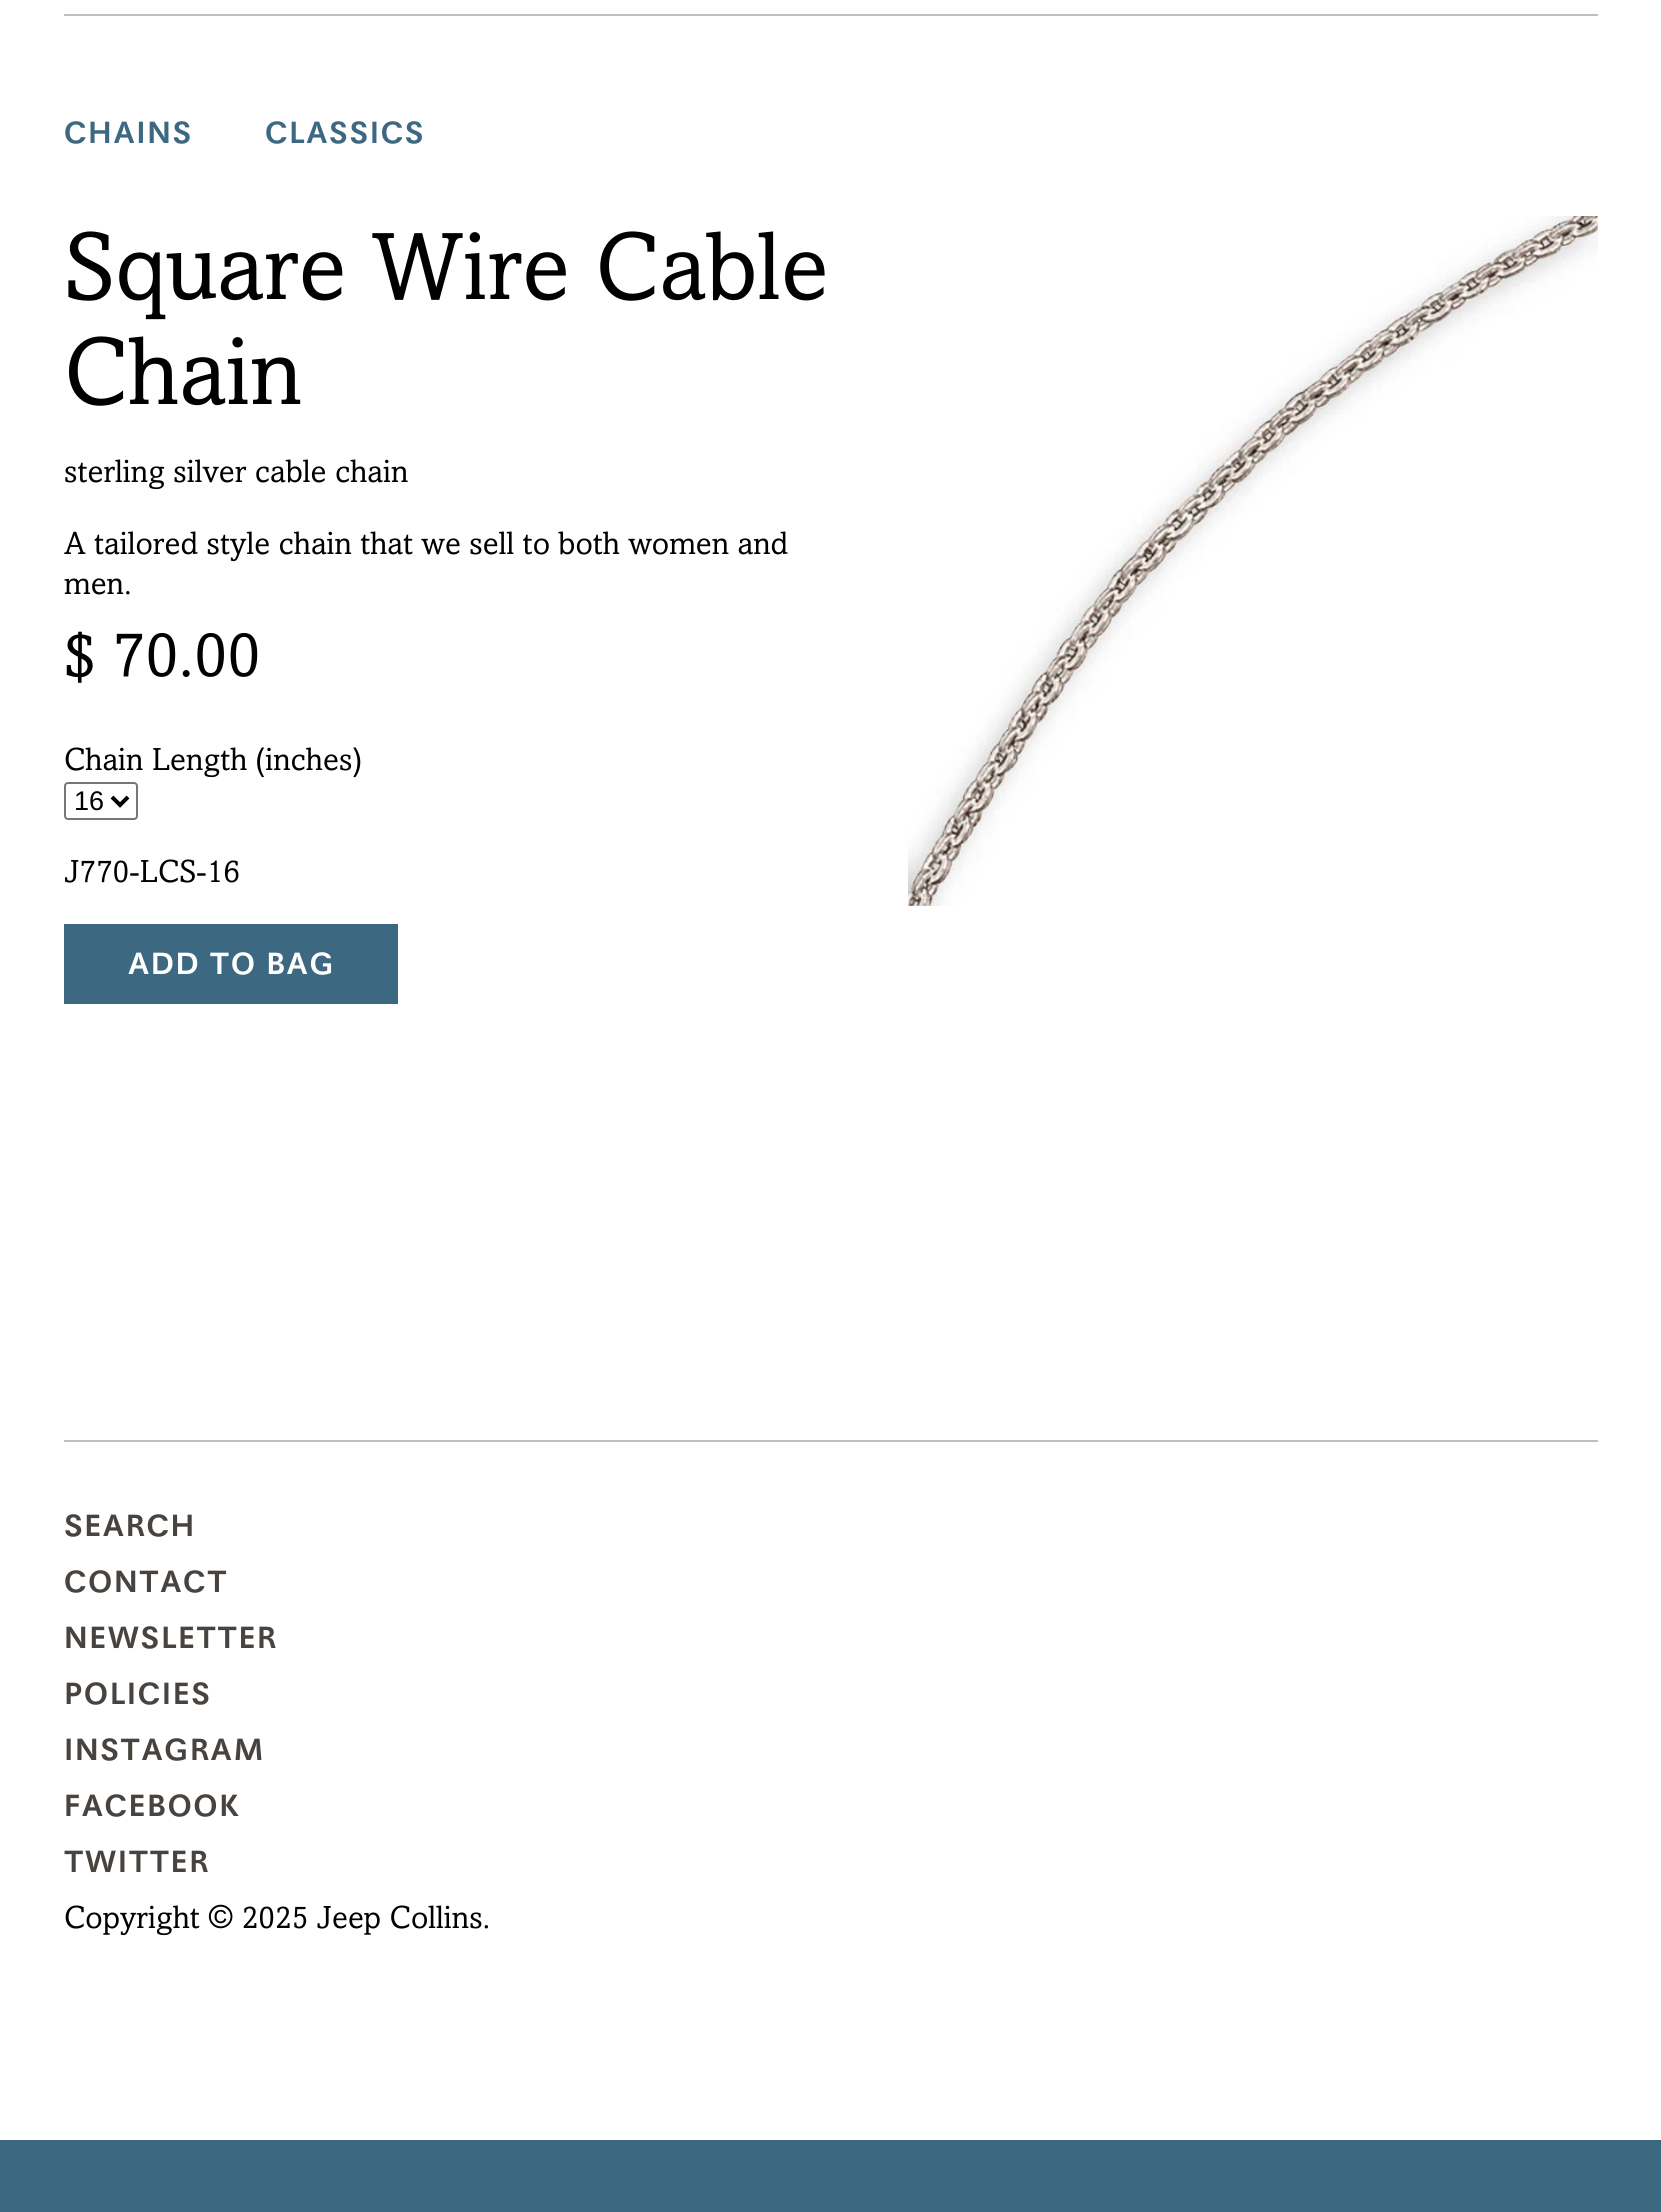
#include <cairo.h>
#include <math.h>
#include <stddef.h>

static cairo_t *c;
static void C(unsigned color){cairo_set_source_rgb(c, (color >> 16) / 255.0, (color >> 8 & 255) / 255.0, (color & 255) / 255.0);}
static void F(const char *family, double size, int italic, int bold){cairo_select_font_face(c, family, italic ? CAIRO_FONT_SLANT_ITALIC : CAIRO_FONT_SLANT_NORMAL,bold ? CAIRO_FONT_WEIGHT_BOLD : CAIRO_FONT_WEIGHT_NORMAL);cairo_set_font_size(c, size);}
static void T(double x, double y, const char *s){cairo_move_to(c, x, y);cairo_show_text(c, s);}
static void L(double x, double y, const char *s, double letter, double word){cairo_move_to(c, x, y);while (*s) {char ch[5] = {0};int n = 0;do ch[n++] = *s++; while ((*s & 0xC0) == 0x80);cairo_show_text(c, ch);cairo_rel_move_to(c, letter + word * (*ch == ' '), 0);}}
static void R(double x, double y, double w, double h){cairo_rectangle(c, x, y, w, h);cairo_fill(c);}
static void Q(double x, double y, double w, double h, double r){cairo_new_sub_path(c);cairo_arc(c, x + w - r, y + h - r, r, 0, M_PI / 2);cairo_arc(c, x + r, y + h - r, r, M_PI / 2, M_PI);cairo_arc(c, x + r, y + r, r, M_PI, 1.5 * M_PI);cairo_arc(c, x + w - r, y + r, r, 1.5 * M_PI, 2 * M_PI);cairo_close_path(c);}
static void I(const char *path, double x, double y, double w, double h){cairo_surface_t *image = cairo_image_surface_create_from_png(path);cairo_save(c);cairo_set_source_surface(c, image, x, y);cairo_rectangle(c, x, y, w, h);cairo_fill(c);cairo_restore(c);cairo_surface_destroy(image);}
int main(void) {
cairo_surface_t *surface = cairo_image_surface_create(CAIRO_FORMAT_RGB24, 1661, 2212);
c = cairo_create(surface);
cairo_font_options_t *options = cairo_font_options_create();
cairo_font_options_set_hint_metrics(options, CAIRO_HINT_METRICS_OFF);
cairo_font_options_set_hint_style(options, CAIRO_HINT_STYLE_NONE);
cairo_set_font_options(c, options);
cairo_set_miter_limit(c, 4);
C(0xffffff);
cairo_paint(c);
C(0xbfbfbf);
R(64,14,1534,2);
F("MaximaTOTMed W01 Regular",32,0,0);
C(0x3d6881);
L(64,143,"CHAINS",1.6,0);
L(265,143,"CLASSICS",1.6,0);
F("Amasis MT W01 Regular",96,0,0);
C(0x000000);
T(64,299,"Square Wire Cable");
T(64,404,"Chain");
F("Amasis MT W01 Regular",32,0,0);
T(64,482,"sterling silver cable chain");
T(64,554,"A tailored style chain that we sell to both women and");
T(64,594,"men.");
F("Amasis MT W01 Regular",64,0,0);
T(64,676,"$ 70.00");
F("Amasis MT W01 Regular",32,0,0);
T(64,770,"Chain Length (inches)");
Q(65,783,72,36,3);
C(0x767676);
cairo_stroke(c);
cairo_new_path(c);
cairo_move_to(c,112,797);
cairo_line_to(c,120,805);
cairo_line_to(c,128,797);
C(0x000000);
cairo_set_line_width(c,4);
cairo_stroke(c);
F("Liberation Sans",27,0,0);
T(74,810,"16");
F("Amasis MT W01 Regular",32,0,0);
T(64,882,"J770-LCS-16");
C(0x3d6881);
R(64,924,334,80);
F("MaximaTOTMed W01 Regular",32,0,0);
C(0xffffff);
L(128,974,"ADD TO BAG",1.6,0);
I("1.png",908,216,690,690);
C(0xbfbfbf);
R(64,1440,1534,2);
C(0x48433e);
L(64,1536,"SEARCH",1.6,0);
L(64,1592,"CONTACT",1.6,0);
L(64,1648,"NEWSLETTER",1.6,0);
L(64,1704,"POLICIES",1.6,0);
L(64,1760,"INSTAGRAM",1.6,0);
L(64,1816,"FACEBOOK",1.6,0);
L(64,1872,"TWITTER",1.6,0);
F("Amasis MT W01 Regular",32,0,0);
C(0x000000);
T(64,1928,"Copyright © 2025 Jeep Collins.");
C(0x3d6881);
R(0,2140,1661,72);
cairo_surface_write_to_png(surface, "o.png");
cairo_font_options_destroy(options);
cairo_destroy(c);
cairo_surface_destroy(surface);
return 0;
}
